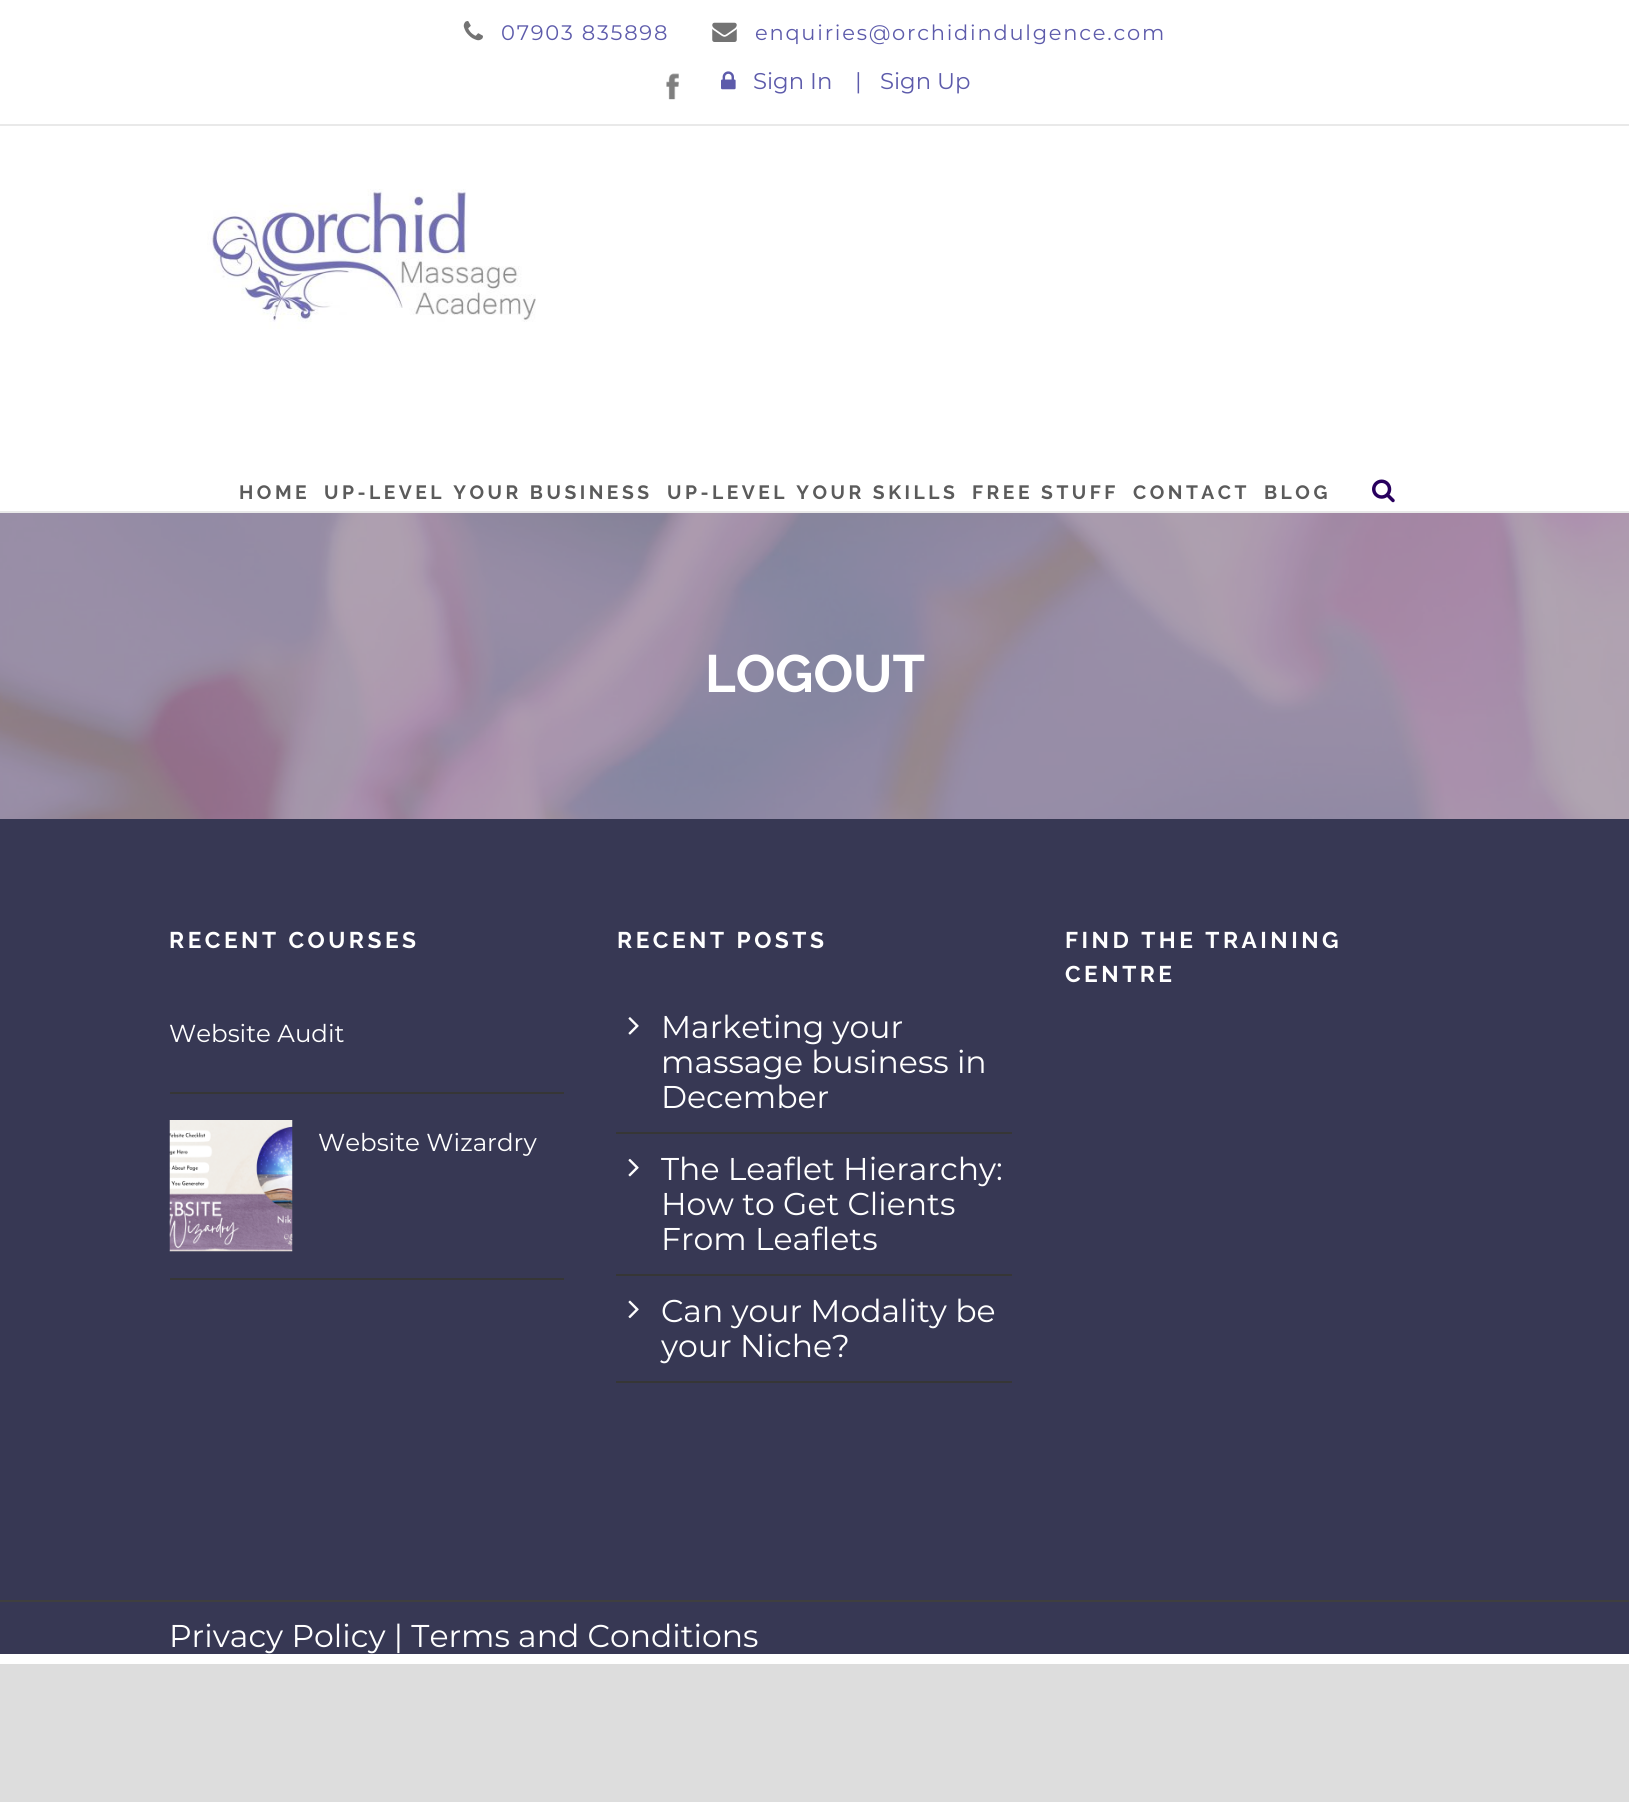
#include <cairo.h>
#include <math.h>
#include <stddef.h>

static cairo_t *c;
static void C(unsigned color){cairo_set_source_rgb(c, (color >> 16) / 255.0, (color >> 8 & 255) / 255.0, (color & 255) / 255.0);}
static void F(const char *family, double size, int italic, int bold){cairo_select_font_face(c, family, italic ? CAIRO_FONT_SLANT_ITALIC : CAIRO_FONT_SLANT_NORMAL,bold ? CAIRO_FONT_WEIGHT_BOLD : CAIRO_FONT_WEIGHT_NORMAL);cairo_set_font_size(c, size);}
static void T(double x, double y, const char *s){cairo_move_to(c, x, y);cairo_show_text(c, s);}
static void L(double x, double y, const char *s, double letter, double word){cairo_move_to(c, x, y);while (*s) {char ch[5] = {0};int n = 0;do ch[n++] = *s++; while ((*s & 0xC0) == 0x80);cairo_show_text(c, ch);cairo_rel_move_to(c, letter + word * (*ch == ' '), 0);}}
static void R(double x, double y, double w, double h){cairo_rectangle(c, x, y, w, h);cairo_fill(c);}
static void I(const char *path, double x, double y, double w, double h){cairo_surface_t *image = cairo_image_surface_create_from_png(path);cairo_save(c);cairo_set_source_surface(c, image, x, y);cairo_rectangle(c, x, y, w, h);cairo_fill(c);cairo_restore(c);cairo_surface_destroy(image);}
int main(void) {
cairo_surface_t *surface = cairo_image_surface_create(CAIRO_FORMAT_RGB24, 1629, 1802);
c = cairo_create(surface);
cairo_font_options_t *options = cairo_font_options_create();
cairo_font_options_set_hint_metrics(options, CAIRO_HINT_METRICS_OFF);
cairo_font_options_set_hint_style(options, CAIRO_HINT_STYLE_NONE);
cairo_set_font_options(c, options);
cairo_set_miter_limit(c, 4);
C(0xdddddd);
cairo_paint(c);
C(0xffffff);
R(0,0,1629,1664);
C(0xe9e9e9);
R(0,124,1629,2);
I("1.png",463,21,20,20);
F("Montserrat",21,0,0);
C(0x5d5bab);
L(501,40,"07903 835898",1.75,0);
I("2.png",712,22,25,20);
L(755,40,"enquiries@orchidindulgence.com",1.75,0);
I("3.png",666,73,13,27);
I("4.png",721,71,15,19);
F("Montserrat",22.75,0,0);
T(753,89,"Sign In");
T(855,89,"|");
T(880,89,"Sign Up");
C(0xe9e9e9);
R(0,511,1629,2);
I("5.png",207,189,329,140);
F("Raleway",19.25,0,1);
C(0x5b5b5b);
L(239,499,"HOME",3.5,0);
L(324,499,"UP-LEVEL YOUR BUSINESS",3.5,0);
L(667,499,"UP-LEVEL YOUR SKILLS",3.5,0);
L(972,499,"FREE STUFF",3.5,0);
L(1133,499,"CONTACT",3.5,0);
L(1264,499,"BLOG",3.5,0);
I("6.png",1372,479,23,24);
I("7.png",0,513,1629,306);
F("Raleway",52.5,0,1);
C(0xffffff);
T(705,692,"LOGOUT");
C(0x373854);
R(0,819,1629,835);
F("Raleway",22.75,0,1);
C(0xffffff);
L(169,948,"RECENT COURSES",3.5,0);
C(0x363636);
R(170,1092,394,2);
F("Montserrat",24.5,0,0);
C(0xffffff);
T(169,1042,"Website Audit");
C(0x363636);
R(170,1278,394,2);
I("8.png",169,1120,124,132);
C(0xffffff);
T(318,1151,"Website Wizardry");
F("Raleway",22.75,0,1);
L(617,948,"RECENT POSTS",3.5,0);
C(0x363636);
R(616,1132,396,2);
I("9.png",628,1017,11,18);
F("Montserrat",31.5,0,0);
C(0xffffff);
T(661,1038,"Marketing your");
T(661,1073,"massage business in");
T(661,1108,"December");
C(0x363636);
R(616,1274,396,2);
I("10.png",628,1158,11,19);
C(0xffffff);
T(661,1180,"The Leaflet Hierarchy:");
T(661,1215,"How to Get Clients");
T(661,1250,"From Leaflets");
C(0x363636);
R(616,1381,396,2);
I("11.png",628,1300,11,19);
C(0xffffff);
T(661,1322,"Can your Modality be");
T(661,1357,"your Niche?");
F("Raleway",22.75,0,1);
L(1065,948,"FIND THE TRAINING",3.5,0);
L(1065,982,"CENTRE",3.5,0);
C(0x3f3f3f);
R(0,1600,1629,2);
F("Montserrat",31.5,0,0);
C(0xffffff);
T(169,1647,"Privacy Policy | Terms and Conditions");
cairo_surface_write_to_png(surface, "o.png");
cairo_font_options_destroy(options);
cairo_destroy(c);
cairo_surface_destroy(surface);
return 0;
}
